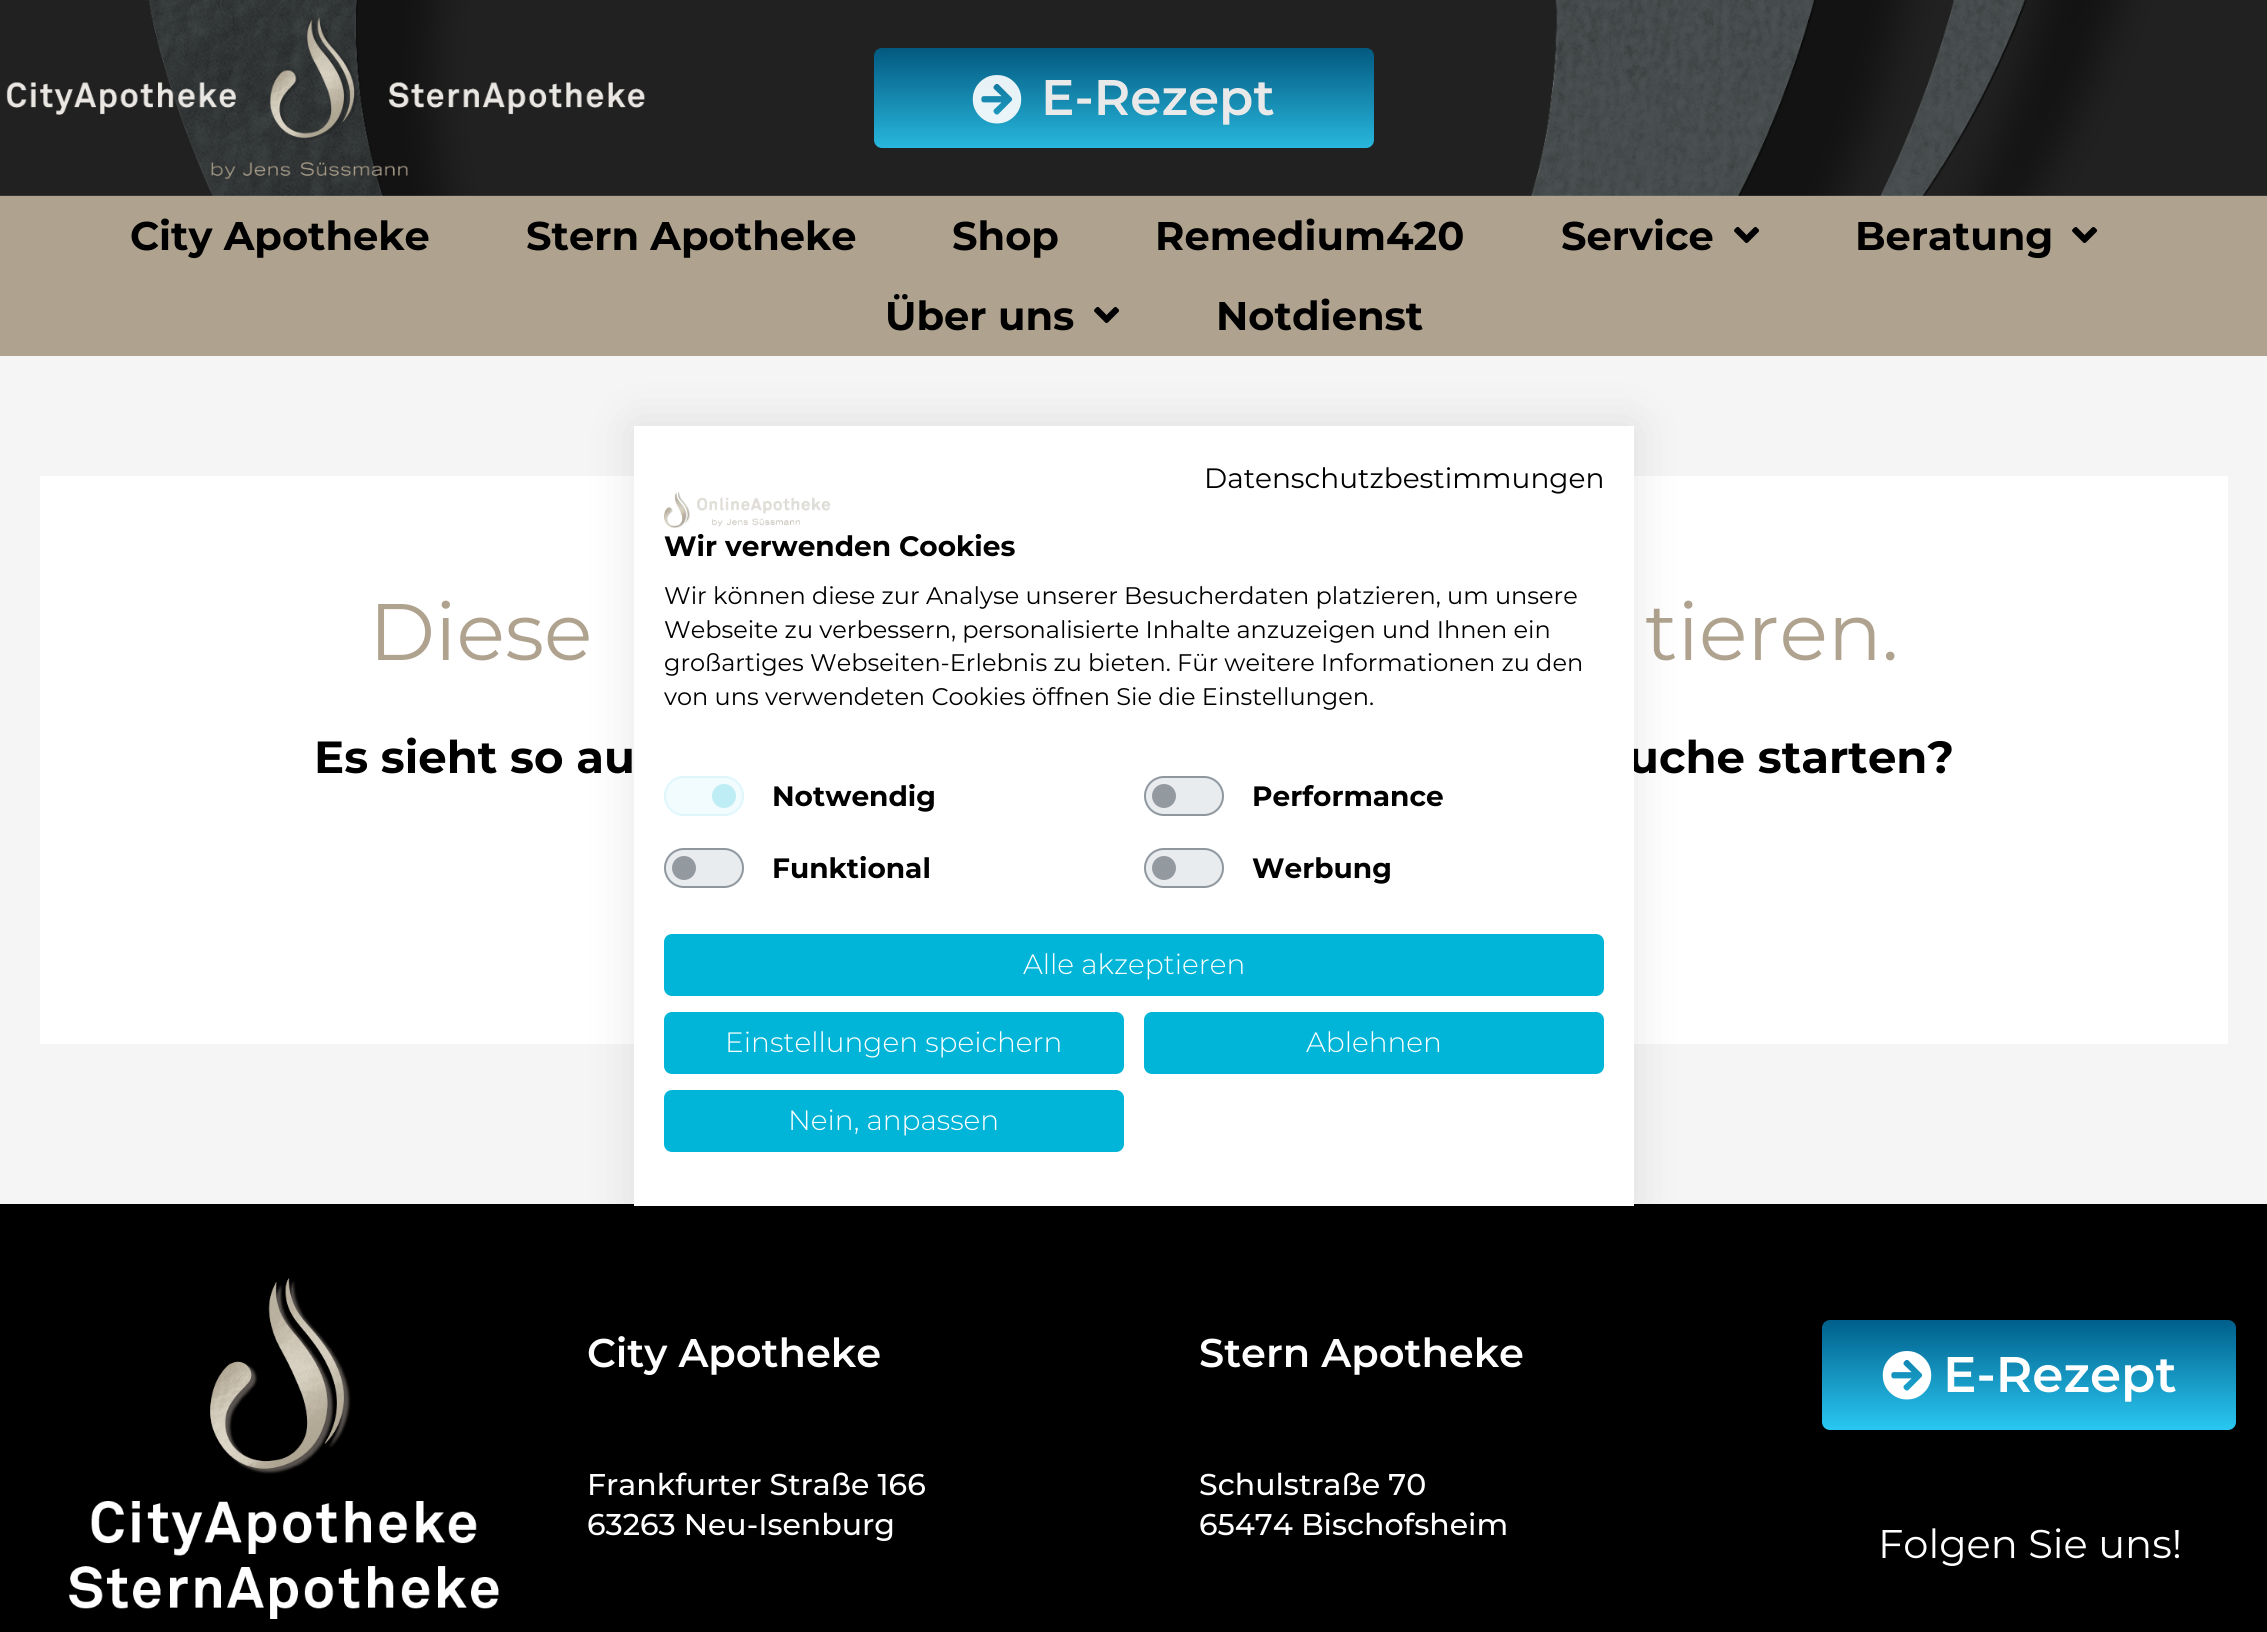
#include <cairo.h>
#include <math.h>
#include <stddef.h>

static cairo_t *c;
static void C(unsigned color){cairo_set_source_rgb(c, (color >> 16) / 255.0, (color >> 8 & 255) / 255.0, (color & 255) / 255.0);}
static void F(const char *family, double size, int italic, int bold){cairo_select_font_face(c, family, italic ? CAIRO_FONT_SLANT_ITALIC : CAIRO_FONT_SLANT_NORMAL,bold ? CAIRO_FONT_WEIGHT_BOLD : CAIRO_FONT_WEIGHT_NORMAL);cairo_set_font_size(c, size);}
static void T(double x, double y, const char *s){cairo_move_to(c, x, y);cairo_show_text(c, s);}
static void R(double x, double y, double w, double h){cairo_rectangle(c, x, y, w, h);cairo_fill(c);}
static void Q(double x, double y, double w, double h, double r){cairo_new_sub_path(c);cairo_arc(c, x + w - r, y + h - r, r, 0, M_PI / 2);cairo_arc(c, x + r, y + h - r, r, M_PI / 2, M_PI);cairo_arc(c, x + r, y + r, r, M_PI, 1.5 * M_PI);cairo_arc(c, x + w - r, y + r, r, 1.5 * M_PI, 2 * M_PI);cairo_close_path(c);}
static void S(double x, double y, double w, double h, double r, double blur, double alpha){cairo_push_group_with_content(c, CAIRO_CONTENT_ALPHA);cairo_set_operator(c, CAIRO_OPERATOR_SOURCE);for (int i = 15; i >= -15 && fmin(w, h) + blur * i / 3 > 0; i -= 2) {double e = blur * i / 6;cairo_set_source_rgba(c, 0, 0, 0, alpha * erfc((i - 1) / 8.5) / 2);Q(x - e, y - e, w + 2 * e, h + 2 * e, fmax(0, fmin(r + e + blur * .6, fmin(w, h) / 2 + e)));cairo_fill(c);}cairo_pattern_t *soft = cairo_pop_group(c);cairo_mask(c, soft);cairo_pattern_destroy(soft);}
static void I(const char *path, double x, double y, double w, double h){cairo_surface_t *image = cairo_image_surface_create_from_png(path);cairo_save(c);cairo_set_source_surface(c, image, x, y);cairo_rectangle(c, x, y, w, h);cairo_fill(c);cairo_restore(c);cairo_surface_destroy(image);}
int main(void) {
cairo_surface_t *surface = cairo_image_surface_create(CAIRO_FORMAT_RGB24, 2267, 1632);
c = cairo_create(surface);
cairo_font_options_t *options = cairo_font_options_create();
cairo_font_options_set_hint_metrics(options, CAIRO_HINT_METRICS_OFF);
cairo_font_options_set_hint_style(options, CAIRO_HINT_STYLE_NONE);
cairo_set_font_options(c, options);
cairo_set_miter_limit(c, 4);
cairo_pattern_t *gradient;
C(0xf5f5f5);
cairo_paint(c);
I("1.png",0,0,2267,196);
I("2.png",6,17,639,163);
gradient = cairo_pattern_create_linear(1124,48,1124,148);
cairo_pattern_add_color_stop_rgba(gradient,0,0.012,0.349,0.502,1);
cairo_pattern_add_color_stop_rgba(gradient,1,0.157,0.718,0.867,1);
cairo_set_source(c,gradient);
cairo_pattern_destroy(gradient);
Q(874,48,500,100,8);
cairo_fill(c);
I("3.png",972,75,50,49);
F("Montserrat SemiBold",50,0,0);
C(0xe9e9e9);
T(1041,115,"E-Rezept");
C(0xafa28e);
R(0,196,2267,160);
F("Montserrat",40,0,1);
C(0x000000);
T(130,250,"City Apotheke");
T(526,250,"Stern Apotheke");
T(952,250,"Shop");
T(1155,250,"Remedium420");
T(1561,250,"Service");
I("4.png",1734,227,26,16);
T(1855,250,"Beratung");
I("4.png",2072,227,26,16);
T(885,330,"Über uns");
I("4.png",1094,307,26,16);
T(1216,330,"Notdienst");
C(0xffffff);
R(40,476,2188,568);
F("Montserrat",80,0,0);
C(0xafa28e);
T(369,660,"Diese");
T(1645,660,"tieren.");
F("Montserrat",45,0,1);
C(0x000000);
T(314,773,"Es sieht so au");
T(1628,773,"uche starten?");
R(0,1204,2267,428);
I("5.png",69,1278,430,341);
F("Montserrat SemiBold",40,0,0);
C(0xffffff);
T(587,1367,"City Apotheke");
F("Montserrat Medium",30,0,0);
T(587,1495,"Frankfurter Straße 166");
T(587,1535,"63263 Neu-Isenburg");
F("Montserrat SemiBold",40,0,0);
T(1199,1367,"Stern Apotheke");
F("Montserrat Medium",30,0,0);
T(1199,1495,"Schulstraße 70");
T(1199,1535,"65474 Bischofsheim");
gradient = cairo_pattern_create_linear(2029,1320,2029,1430);
cairo_pattern_add_color_stop_rgba(gradient,0,0,0.373,0.545,1);
cairo_pattern_add_color_stop_rgba(gradient,1,0.161,0.784,0.949,1);
cairo_set_source(c,gradient);
cairo_pattern_destroy(gradient);
Q(1822,1320,414,110,8);
cairo_fill(c);
I("6.png",1882,1351,50,49);
F("Montserrat SemiBold",50,0,0);
C(0xffffff);
T(1943,1392,"E-Rezept");
F("Montserrat",40,0,0);
T(1878,1558,"Folgen Sie uns!");
C(0x000000);
S(634,426,1000,780,0,24,.1);
C(0xffffff);
R(634,426,1000,780);
F("Montserrat",28,0,0);
C(0x000000);
T(1204,488,"Datenschutzbestimmungen");
I("7.png",664,491,166,37);
F("Montserrat",28,0,1);
T(664,556,"Wir verwenden Cookies");
F("Montserrat",24,0,0);
T(664,604,"Wir können diese zur Analyse unserer Besucherdaten platzieren, um unsere");
T(664,638,"Webseite zu verbessern, personalisierte Inhalte anzuzeigen und Ihnen ein");
T(664,671,"großartiges Webseiten-Erlebnis zu bieten. Für weitere Informationen zu den");
T(664,705,"von uns verwendeten Cookies öffnen Sie die Einstellungen.");
C(0xf2fbfd);
Q(664,776,80,40,20);
cairo_fill(c);
C(0xbfedf5);
cairo_arc(c,724,796,12,0,2 * M_PI);
cairo_fill(c);
Q(665,777,78,38,19);
C(0xdff6fa);
cairo_stroke(c);
F("Montserrat",28,0,1);
C(0x000000);
T(772,806,"Notwendig");
C(0xe9ecef);
Q(1144,776,80,40,20);
cairo_fill(c);
C(0x92999f);
cairo_arc(c,1164,796,12,0,2 * M_PI);
cairo_fill(c);
Q(1145,777,78,38,19);
cairo_set_source_rgba(c,0.424,0.459,0.49,0.7);
cairo_stroke(c);
C(0x000000);
T(1252,806,"Performance");
C(0xe9ecef);
Q(664,848,80,40,20);
cairo_fill(c);
C(0x92999f);
cairo_arc(c,684,868,12,0,2 * M_PI);
cairo_fill(c);
Q(665,849,78,38,19);
cairo_set_source_rgba(c,0.424,0.459,0.49,0.7);
cairo_stroke(c);
C(0x000000);
T(772,878,"Funktional");
C(0xe9ecef);
Q(1144,848,80,40,20);
cairo_fill(c);
C(0x92999f);
cairo_arc(c,1164,868,12,0,2 * M_PI);
cairo_fill(c);
Q(1145,849,78,38,19);
cairo_set_source_rgba(c,0.424,0.459,0.49,0.7);
cairo_stroke(c);
C(0x000000);
T(1252,878,"Werbung");
C(0x00b5d8);
Q(665,935,938,60,7);
cairo_fill_preserve(c);
cairo_stroke(c);
F("Montserrat Light",28,0,0);
C(0xffffff);
T(1023,974,"Alle akzeptieren");
C(0x00b5d8);
Q(665,1013,458,60,7);
cairo_fill_preserve(c);
cairo_stroke(c);
C(0xffffff);
T(725,1052,"Einstellungen speichern");
C(0x00b5d8);
Q(1145,1013,458,60,7);
cairo_fill_preserve(c);
cairo_stroke(c);
C(0xffffff);
T(1306,1052,"Ablehnen");
C(0x00b5d8);
Q(665,1091,458,60,7);
cairo_fill_preserve(c);
cairo_stroke(c);
C(0xffffff);
T(788,1130,"Nein, anpassen");
cairo_surface_write_to_png(surface, "o.png");
cairo_font_options_destroy(options);
cairo_destroy(c);
cairo_surface_destroy(surface);
return 0;
}
